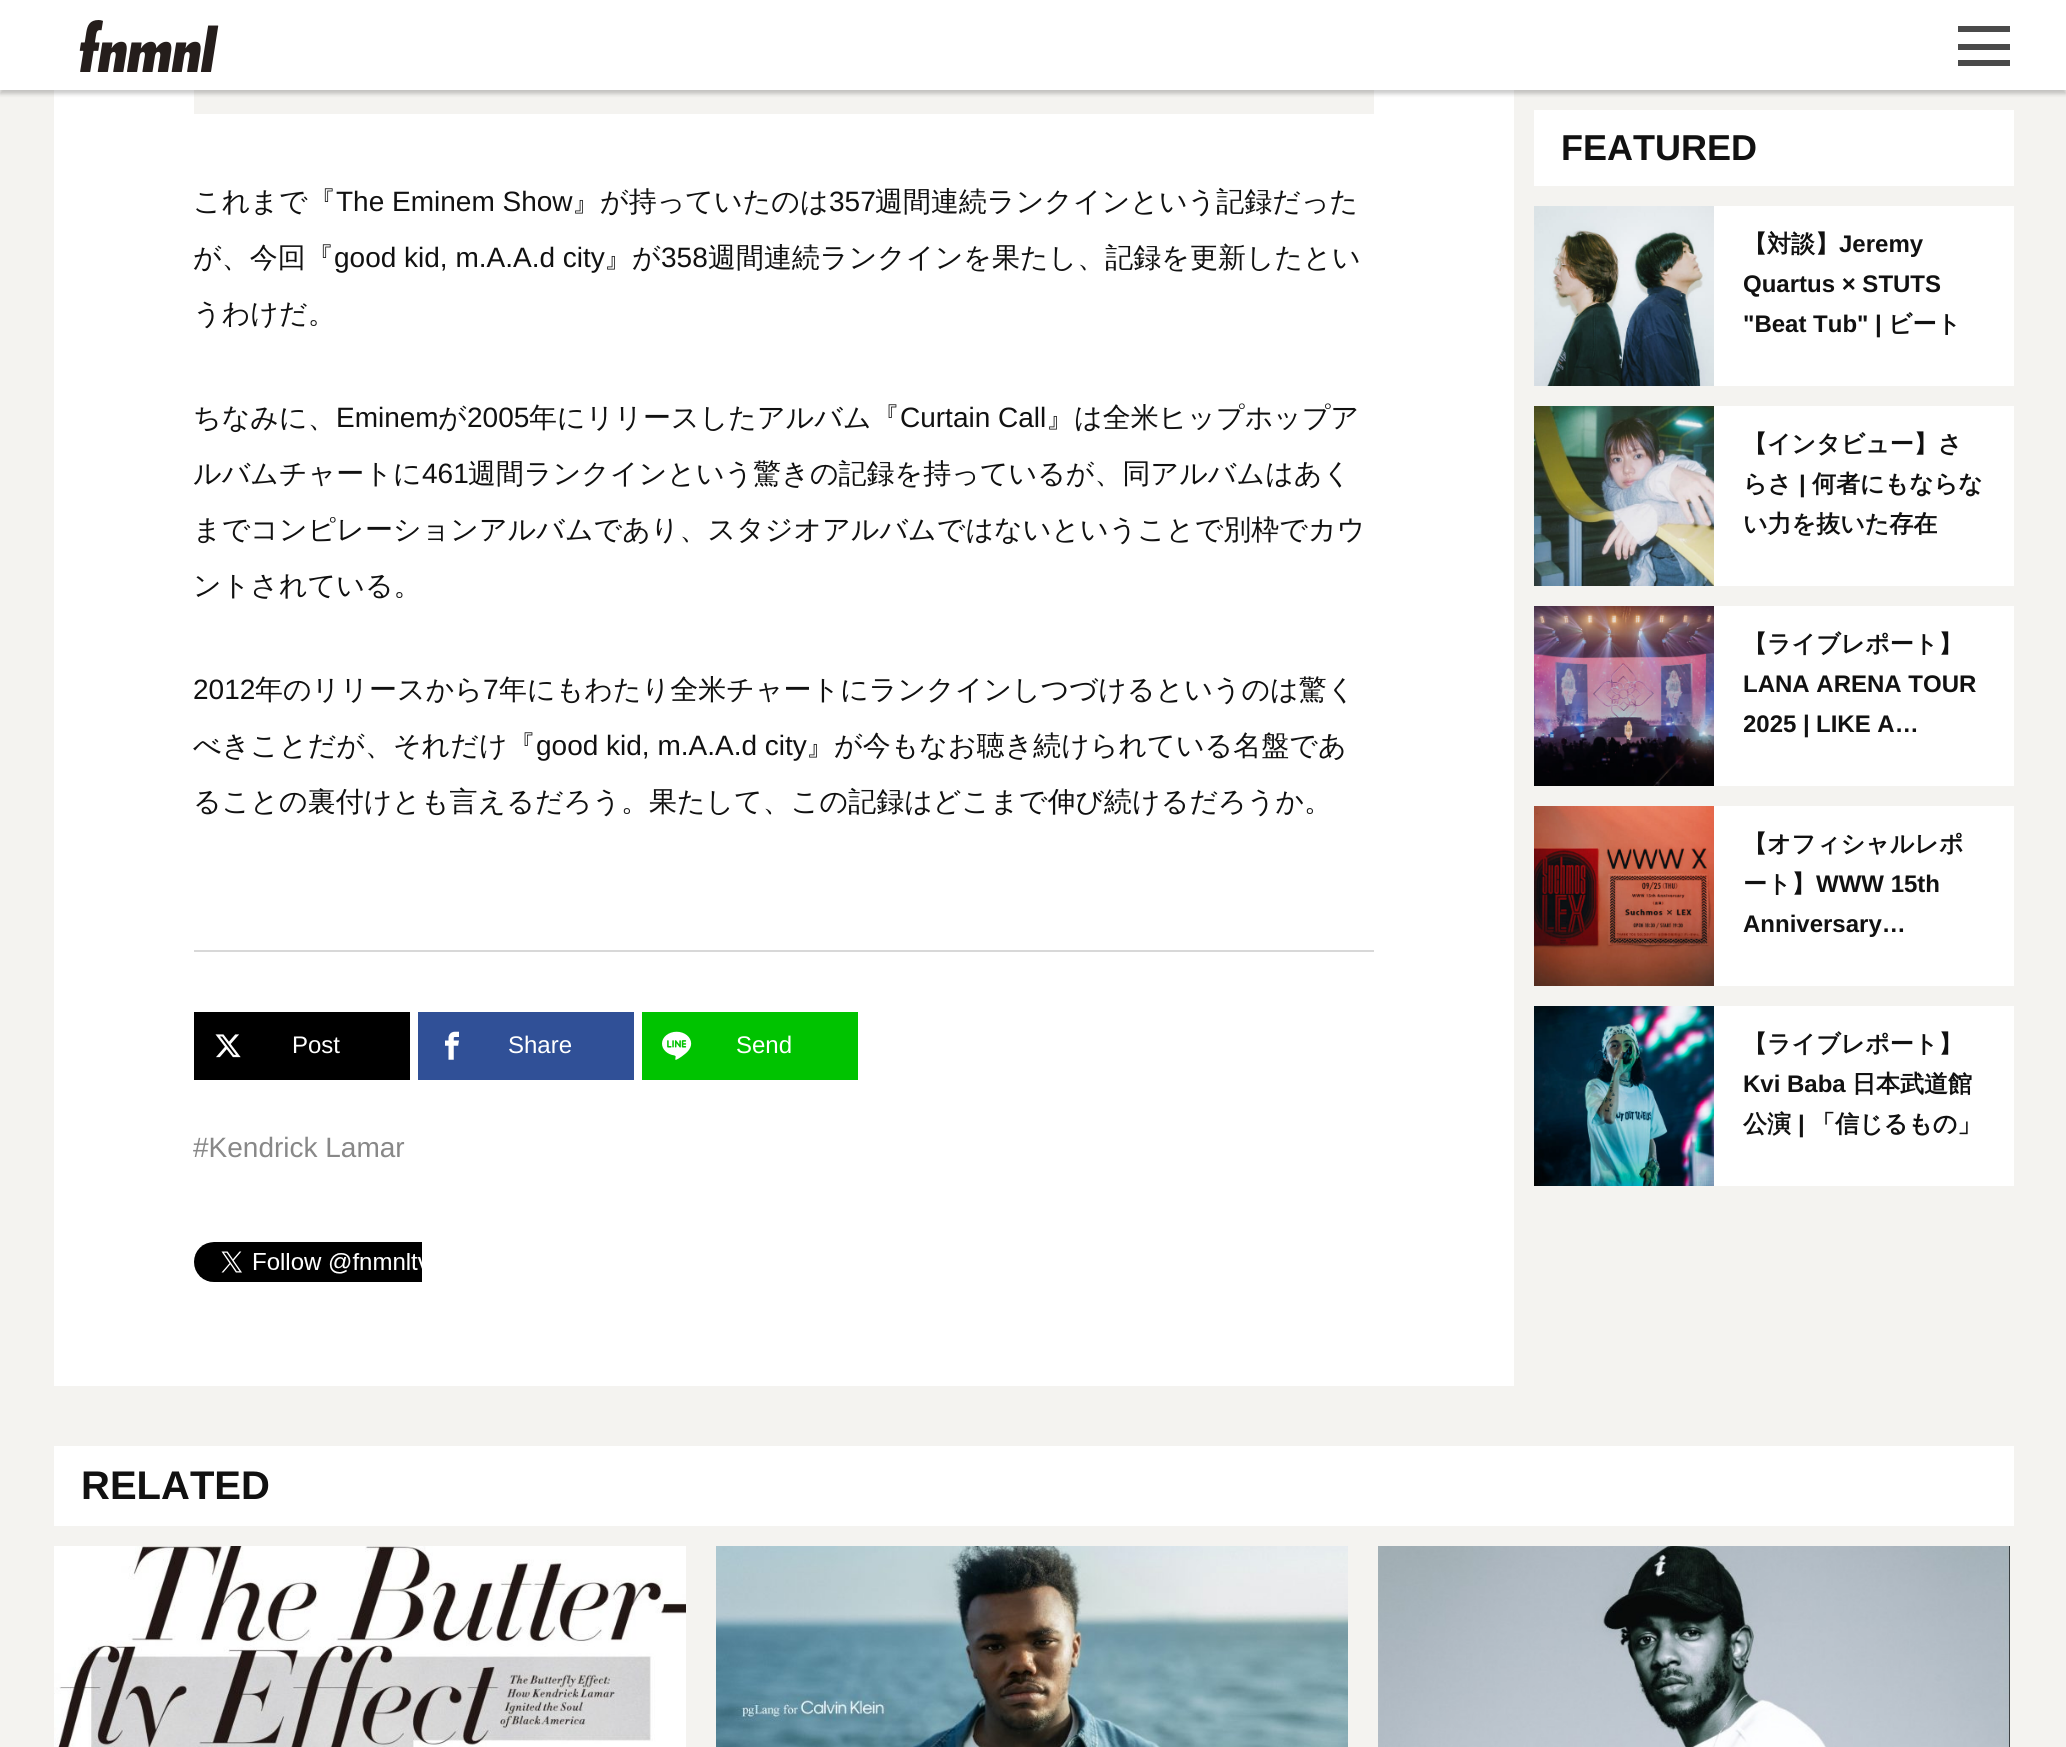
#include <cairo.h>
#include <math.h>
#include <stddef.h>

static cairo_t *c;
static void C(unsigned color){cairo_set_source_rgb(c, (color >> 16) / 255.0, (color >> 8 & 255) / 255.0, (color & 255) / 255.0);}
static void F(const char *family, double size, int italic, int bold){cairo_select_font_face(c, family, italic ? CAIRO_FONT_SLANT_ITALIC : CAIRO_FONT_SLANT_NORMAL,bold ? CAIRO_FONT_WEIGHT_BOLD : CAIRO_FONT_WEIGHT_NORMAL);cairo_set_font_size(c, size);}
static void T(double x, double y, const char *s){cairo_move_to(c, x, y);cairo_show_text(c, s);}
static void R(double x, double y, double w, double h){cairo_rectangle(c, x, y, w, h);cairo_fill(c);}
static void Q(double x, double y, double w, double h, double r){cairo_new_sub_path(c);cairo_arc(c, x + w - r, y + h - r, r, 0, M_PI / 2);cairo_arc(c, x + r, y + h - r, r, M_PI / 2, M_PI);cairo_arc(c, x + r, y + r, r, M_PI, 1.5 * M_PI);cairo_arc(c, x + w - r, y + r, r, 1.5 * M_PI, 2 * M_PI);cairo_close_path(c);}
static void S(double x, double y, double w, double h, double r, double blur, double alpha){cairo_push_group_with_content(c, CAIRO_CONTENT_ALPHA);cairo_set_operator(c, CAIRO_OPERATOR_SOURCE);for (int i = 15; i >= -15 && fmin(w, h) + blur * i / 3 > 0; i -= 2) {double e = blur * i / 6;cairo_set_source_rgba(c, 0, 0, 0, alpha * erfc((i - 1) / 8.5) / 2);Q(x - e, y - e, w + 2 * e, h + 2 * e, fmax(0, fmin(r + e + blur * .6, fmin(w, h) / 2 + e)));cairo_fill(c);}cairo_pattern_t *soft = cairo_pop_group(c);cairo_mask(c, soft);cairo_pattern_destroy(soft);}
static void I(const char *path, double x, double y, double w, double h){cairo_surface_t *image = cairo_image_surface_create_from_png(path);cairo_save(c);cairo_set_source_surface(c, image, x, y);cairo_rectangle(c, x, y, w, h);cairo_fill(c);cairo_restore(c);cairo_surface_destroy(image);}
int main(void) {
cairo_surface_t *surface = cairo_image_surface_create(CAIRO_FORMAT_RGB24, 2066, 1747);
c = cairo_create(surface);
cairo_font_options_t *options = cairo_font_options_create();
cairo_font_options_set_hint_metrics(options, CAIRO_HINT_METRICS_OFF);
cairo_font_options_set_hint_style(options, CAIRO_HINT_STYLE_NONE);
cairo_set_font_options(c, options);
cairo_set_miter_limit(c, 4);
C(0xf4f3f0);
cairo_paint(c);
C(0xffffff);
R(54,90,1460,1296);
C(0xf4f3f0);
R(194,90,1180,24);
C(0x000000);
S(0,4,2066,90,0,2,.2);
C(0xffffff);
R(0,0,2066,90);
I("1.png",79,20,140,52);
C(0x4a4a4a);
R(1958,26,52,6);
R(1958,44,52,6);
R(1958,60,52,6);
F("WenQuanYi Zen Hei Medium",28,0,0);
C(0x111111);
T(193,211,"これまで『");
F("Liberation Sans",28,0,0);
T(336,211,"The Eminem Show");
F("WenQuanYi Zen Hei Medium",28,0,0);
T(572,211,"』が持っていたのは");
F("Liberation Sans",28,0,0);
T(829,211,"357");
F("WenQuanYi Zen Hei Medium",28,0,0);
T(875,211,"週間連続ランクインという記録だった");
T(193,267,"が、今回『");
F("Liberation Sans",28,0,0);
T(334,267,"good kid, m.A.A.d city");
F("WenQuanYi Zen Hei Medium",28,0,0);
T(604,267,"』が");
F("Liberation Sans",28,0,0);
T(661,267,"358");
F("WenQuanYi Zen Hei Medium",28,0,0);
T(708,267,"週間連続ランクインを果たし、記録を更新したとい");
T(193,323,"うわけだ。");
T(193,427,"ちなみに、");
F("Liberation Sans",28,0,0);
T(336,427,"Eminem");
F("WenQuanYi Zen Hei Medium",28,0,0);
T(438,427,"が");
F("Liberation Sans",28,0,0);
T(467,427,"2005");
F("WenQuanYi Zen Hei Medium",28,0,0);
T(529,427,"年にリリースしたアルバム『");
F("Liberation Sans",28,0,0);
T(900,427,"Curtain Call");
F("WenQuanYi Zen Hei Medium",28,0,0);
T(1046,427,"』は全米ヒップホップア");
T(193,483,"ルバムチャートに");
F("Liberation Sans",28,0,0);
T(422,483,"461");
F("WenQuanYi Zen Hei Medium",28,0,0);
T(468,483,"週間ランクインという驚きの記録を持っているが、同アルバムはあく");
T(193,539,"までコンピレーションアルバムであり、スタジオアルバムではないということで別枠でカウ");
T(193,595,"ントされている。");
F("Liberation Sans",28,0,0);
T(193,699,"2012");
F("WenQuanYi Zen Hei Medium",28,0,0);
T(255,699,"年のリリースから");
F("Liberation Sans",28,0,0);
T(483,699,"7");
F("WenQuanYi Zen Hei Medium",28,0,0);
T(499,699,"年にもわたり全米チャートにランクインしつづけるというのは驚く");
T(193,755,"べきことだが、それだけ『");
F("Liberation Sans",28,0,0);
T(536,755,"good kid, m.A.A.d city");
F("WenQuanYi Zen Hei Medium",28,0,0);
T(806,755,"』が今もなお聴き続けられている名盤であ");
T(193,811,"ることの裏付けとも言えるだろう。果たして、この記録はどこまで伸び続けるだろうか。");
C(0xd8d8d8);
R(194,950,1180,2);
C(0x000000);
R(194,1012,216,68);
I("2.png",215,1034,26,24);
F("Liberation Sans",24,0,0);
C(0xffffff);
T(292,1053,"Post");
C(0x305097);
R(418,1012,216,68);
I("3.png",445,1031,14,29);
C(0xffffff);
T(508,1053,"Share");
C(0x00c300);
R(642,1012,216,68);
I("4.png",662,1031,30,29);
C(0xffffff);
T(736,1053,"Send");
F("Liberation Sans",28,0,0);
C(0x888888);
T(193,1157,"#Kendrick Lamar");
I("5.png",194,1242,228,40);
C(0xffffff);
R(1534,110,480,76);
F("Liberation Sans",36,0,1);
C(0x111111);
T(1561,160,"FEATURED");
C(0xffffff);
R(1714,206,300,180);
I("6.png",1534,206,180,180);
F("WenQuanYi Zen Hei",24,0,1);
C(0x111111);
T(1743,252,"【対談】");
F("Liberation Sans",24,0,1);
T(1839,252,"Jeremy");
T(1743,292,"Quartus × STUTS");
T(1743,332,"\"Beat Tub\" |");
F("WenQuanYi Zen Hei",24,0,1);
T(1888,332,"ビート");
C(0xffffff);
R(1714,406,300,180);
I("7.png",1534,406,180,180);
C(0x111111);
T(1743,452,"【インタビュー】さ");
T(1743,492,"らさ");
F("Liberation Sans",24,0,1);
T(1799,492,"|");
F("WenQuanYi Zen Hei",24,0,1);
T(1812,492,"何者にもならな");
T(1743,532,"い力を抜いた存在");
C(0xffffff);
R(1714,606,300,180);
I("8.png",1534,606,180,180);
C(0x111111);
T(1743,652,"【ライブレポート】");
F("Liberation Sans",24,0,1);
T(1743,692,"LANA ARENA TOUR");
cairo_save(c);
cairo_rectangle(c,1744,626,240,122);
cairo_clip(c);
T(1743,732,"2025 |");
cairo_restore(c);
T(1816,732,"LIKE A…");
C(0xffffff);
R(1714,806,300,180);
I("9.png",1534,806,180,180);
F("WenQuanYi Zen Hei",24,0,1);
C(0x111111);
T(1743,852,"【オフィシャルレポ");
T(1743,892,"ート】");
F("Liberation Sans",24,0,1);
T(1816,892,"WWW 15th");
T(1743,932,"Anniversary…");
C(0xffffff);
R(1714,1006,300,180);
I("10.png",1534,1006,180,180);
F("WenQuanYi Zen Hei",24,0,1);
C(0x111111);
T(1743,1052,"【ライブレポート】");
F("Liberation Sans",24,0,1);
T(1743,1092,"Kvi Baba");
F("WenQuanYi Zen Hei",24,0,1);
T(1852,1092,"日本武道館");
T(1743,1132,"公演");
F("Liberation Sans",24,0,1);
T(1798,1132,"|");
F("WenQuanYi Zen Hei",24,0,1);
T(1811,1132,"「信じるもの」");
C(0xffffff);
R(54,1446,1960,80);
F("Liberation Sans",40,0,1);
C(0x111111);
T(81,1499,"RELATED");
I("11.png",54,1546,632,201);
I("12.png",716,1546,632,201);
I("13.png",1378,1546,632,201);
cairo_surface_write_to_png(surface, "o.png");
cairo_font_options_destroy(options);
cairo_destroy(c);
cairo_surface_destroy(surface);
return 0;
}
